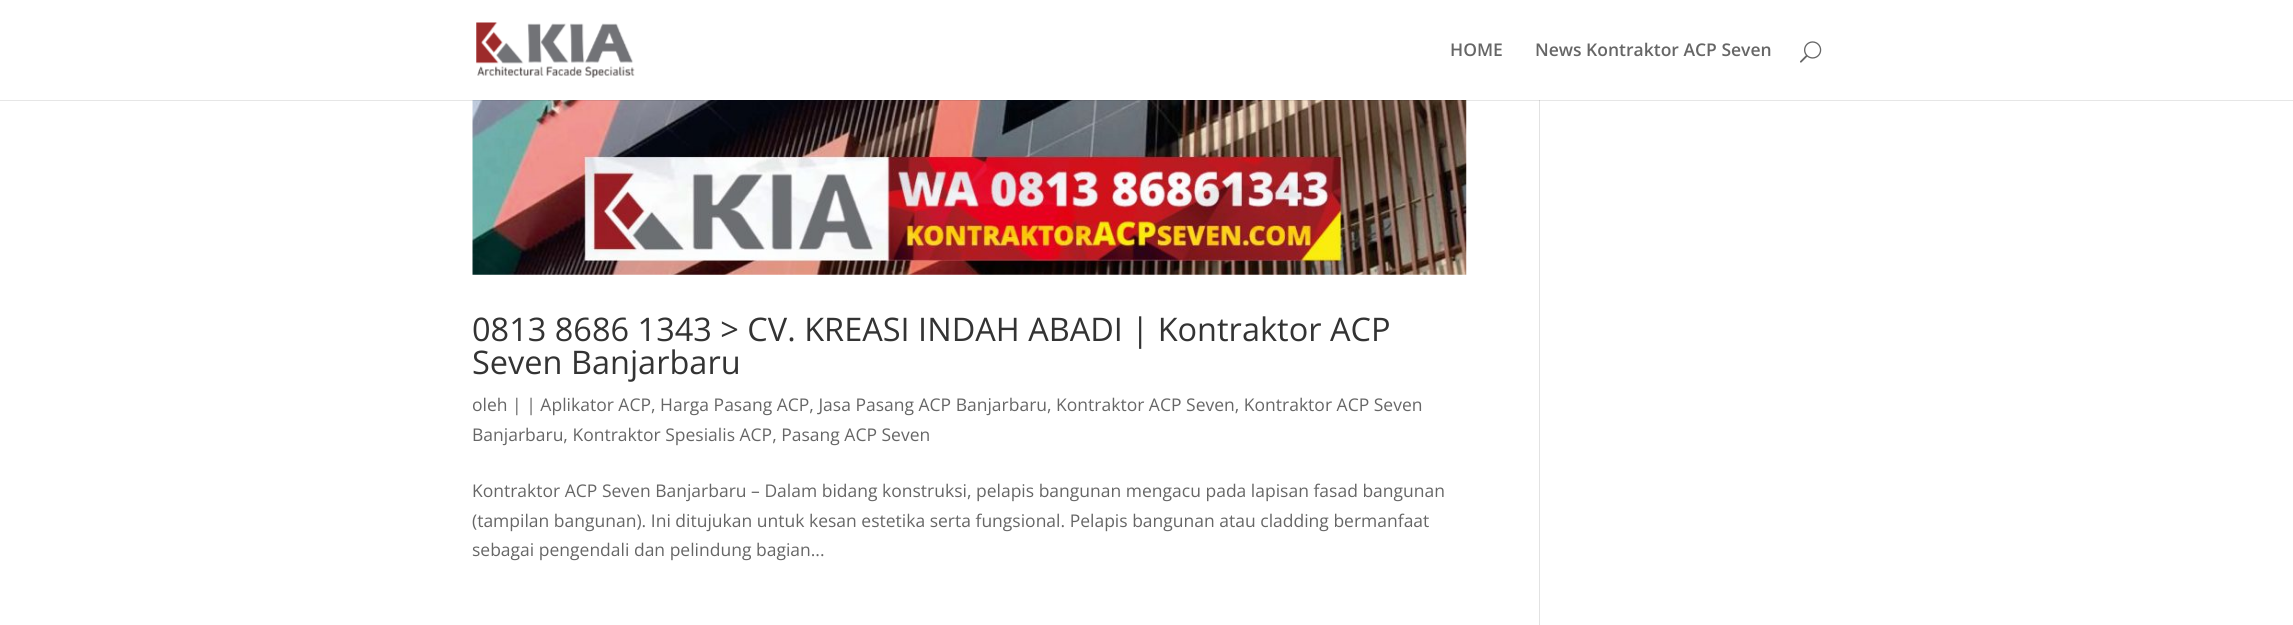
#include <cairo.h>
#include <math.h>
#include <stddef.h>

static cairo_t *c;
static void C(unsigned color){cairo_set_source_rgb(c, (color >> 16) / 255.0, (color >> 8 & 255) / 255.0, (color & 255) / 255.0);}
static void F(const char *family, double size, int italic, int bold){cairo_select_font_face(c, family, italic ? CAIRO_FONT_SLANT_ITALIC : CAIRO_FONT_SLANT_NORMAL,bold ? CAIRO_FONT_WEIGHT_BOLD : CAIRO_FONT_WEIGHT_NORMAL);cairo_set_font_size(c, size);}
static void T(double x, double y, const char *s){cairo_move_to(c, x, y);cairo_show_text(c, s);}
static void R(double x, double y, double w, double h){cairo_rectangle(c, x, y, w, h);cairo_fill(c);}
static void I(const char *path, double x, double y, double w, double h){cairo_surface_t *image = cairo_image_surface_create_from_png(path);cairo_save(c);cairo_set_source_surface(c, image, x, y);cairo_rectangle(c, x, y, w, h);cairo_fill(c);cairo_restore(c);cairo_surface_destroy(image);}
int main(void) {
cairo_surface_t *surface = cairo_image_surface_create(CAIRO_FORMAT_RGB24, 2293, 625);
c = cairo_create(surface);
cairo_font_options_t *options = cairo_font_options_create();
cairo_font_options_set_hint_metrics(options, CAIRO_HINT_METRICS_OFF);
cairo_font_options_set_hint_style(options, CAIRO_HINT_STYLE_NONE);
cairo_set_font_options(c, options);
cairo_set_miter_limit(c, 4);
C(0xffffff);
cairo_paint(c);
I("3.png",472,100,995,175);
C(0xe2e2e2);
R(1539,100,1,525);
cairo_set_source_rgba(c,0,0,0,0.1);
cairo_new_path(c);
cairo_move_to(c,0,100);
cairo_line_to(c,0,101);
cairo_line_to(c,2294,101);
cairo_line_to(c,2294,1);
cairo_line_to(c,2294,100);
cairo_close_path(c);
cairo_fill(c);
I("1.png",476,22,159,56);
F("Open Sans SemiBold",17.5,0,0);
C(0x666666);
T(1450,56,"HOME");
T(1535,56,"News Kontraktor ACP Seven");
I("2.png",1800,41,22,22);
F("Open Sans",32.5,0,0);
C(0x333333);
T(472,341,"0813 8686 1343 > CV. KREASI INDAH ABADI | Kontraktor ACP");
T(472,374,"Seven Banjarbaru");
F("Open Sans",17.5,0,0);
C(0x666666);
T(472,411,"oleh | | Aplikator ACP, Harga Pasang ACP, Jasa Pasang ACP Banjarbaru, Kontraktor ACP Seven, Kontraktor ACP Seven");
T(472,441,"Banjarbaru, Kontraktor Spesialis ACP, Pasang ACP Seven");
T(472,497,"Kontraktor ACP Seven Banjarbaru – Dalam bidang konstruksi, pelapis bangunan mengacu pada lapisan fasad bangunan");
T(472,527,"(tampilan bangunan). Ini ditujukan untuk kesan estetika serta fungsional. Pelapis bangunan atau cladding bermanfaat");
T(472,556,"sebagai pengendali dan pelindung bagian...");
cairo_surface_write_to_png(surface, "o.png");
cairo_font_options_destroy(options);
cairo_destroy(c);
cairo_surface_destroy(surface);
return 0;
}
